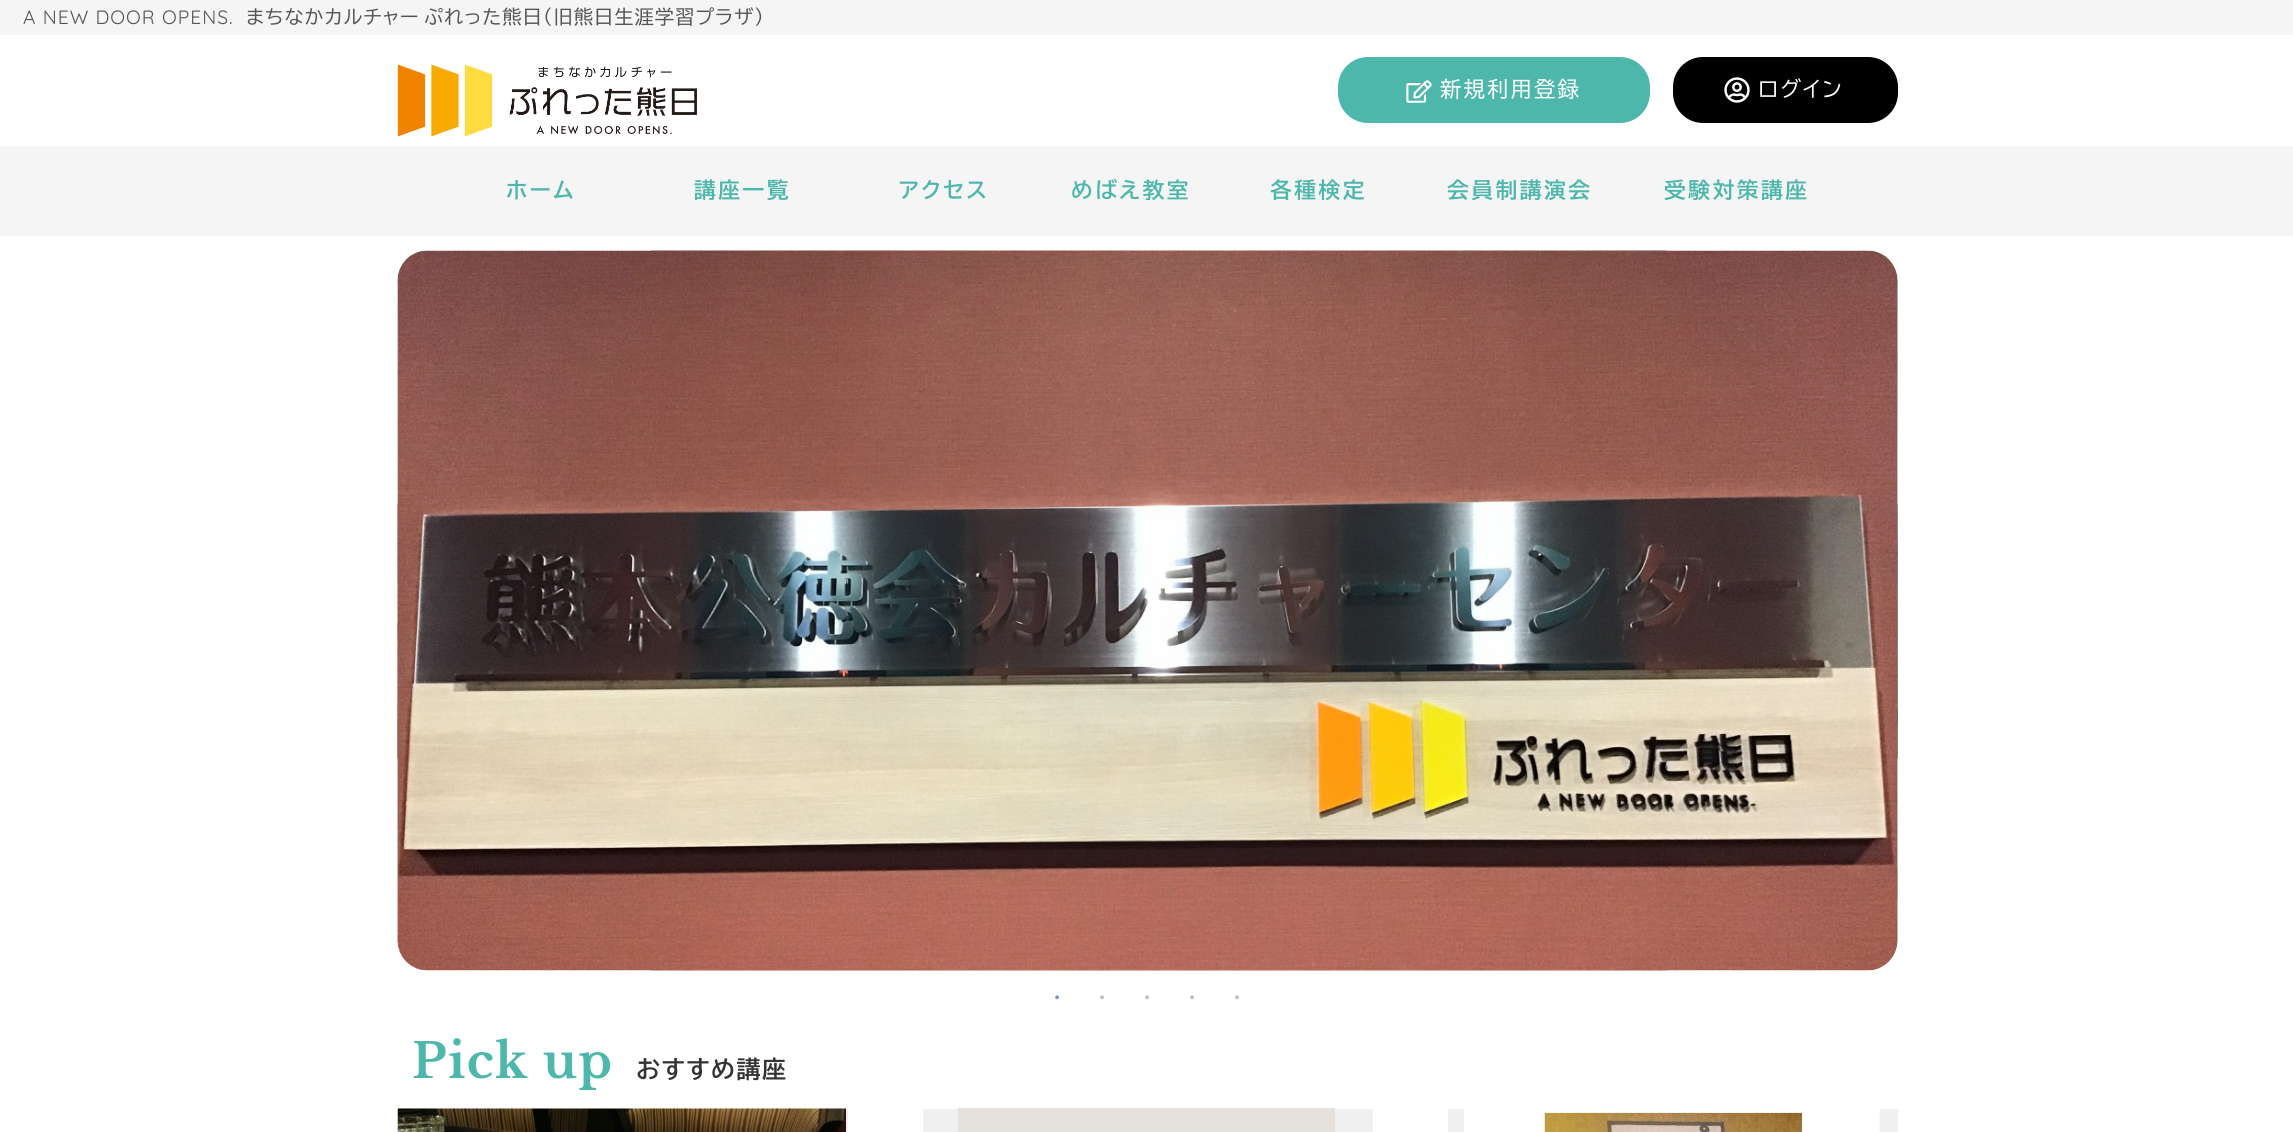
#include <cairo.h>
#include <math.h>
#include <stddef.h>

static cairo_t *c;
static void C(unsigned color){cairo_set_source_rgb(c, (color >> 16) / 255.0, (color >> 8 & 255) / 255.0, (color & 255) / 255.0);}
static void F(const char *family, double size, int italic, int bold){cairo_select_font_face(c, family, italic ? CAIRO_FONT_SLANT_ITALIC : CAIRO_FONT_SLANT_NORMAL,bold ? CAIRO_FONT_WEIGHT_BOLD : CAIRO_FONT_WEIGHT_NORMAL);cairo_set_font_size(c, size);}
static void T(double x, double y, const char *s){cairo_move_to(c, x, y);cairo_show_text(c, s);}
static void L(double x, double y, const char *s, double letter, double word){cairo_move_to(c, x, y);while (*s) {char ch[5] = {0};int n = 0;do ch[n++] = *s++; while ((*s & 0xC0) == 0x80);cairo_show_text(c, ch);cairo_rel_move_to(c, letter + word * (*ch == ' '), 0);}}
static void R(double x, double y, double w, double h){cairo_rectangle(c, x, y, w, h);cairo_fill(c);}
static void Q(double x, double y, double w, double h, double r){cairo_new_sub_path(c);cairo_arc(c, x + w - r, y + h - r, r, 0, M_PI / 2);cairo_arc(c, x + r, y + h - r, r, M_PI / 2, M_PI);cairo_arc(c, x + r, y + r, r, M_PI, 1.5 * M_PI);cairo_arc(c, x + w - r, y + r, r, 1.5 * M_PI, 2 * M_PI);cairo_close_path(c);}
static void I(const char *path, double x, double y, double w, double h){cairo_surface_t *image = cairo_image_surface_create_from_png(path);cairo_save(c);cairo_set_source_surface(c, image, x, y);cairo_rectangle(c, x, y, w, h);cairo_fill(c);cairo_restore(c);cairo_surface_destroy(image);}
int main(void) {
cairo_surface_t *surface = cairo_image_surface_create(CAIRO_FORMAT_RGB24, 2293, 1132);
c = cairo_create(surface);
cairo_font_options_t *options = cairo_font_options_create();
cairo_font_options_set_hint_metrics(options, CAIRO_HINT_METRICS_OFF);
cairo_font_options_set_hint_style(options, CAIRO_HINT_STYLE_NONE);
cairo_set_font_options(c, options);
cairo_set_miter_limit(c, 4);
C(0xffffff);
cairo_paint(c);
C(0xf5f5f5);
R(0,0,2293,35);
F("Quicksand",19.25,0,0);
C(0x555555);
L(23,24,"A NEW DOOR OPENS.",1,0);
F("BIZ UDPGothic",19.25,0,0);
L(246,24,"まちなかカルチャー",1,0);
L(424,24,"ぷれった熊日（旧熊日生涯学習プラザ）",1,0);
I("1.png",397,64,300,73);
C(0x4eb7ac);
Q(1338,57,312,66,30);
cairo_fill(c);
I("2.png",1406,80,26,23);
F("BIZ UDPGothic",21.5,0,0);
C(0xffffff);
L(1440,97,"新規利用登録",2,0);
C(0x000000);
Q(1673,57,225,66,30);
cairo_fill(c);
I("3.png",1724,77,26,26);
C(0xffffff);
L(1758,97,"ログイン",2,0);
C(0xf5f5f5);
R(0,146,2293,90);
F("BIZ UDPGothic",21.75,0,1);
C(0x4eb7ac);
L(506,198,"ホーム",2.5,0);
L(694,198,"講座一覧",2.5,0);
L(899,198,"アクセス",2.5,0);
L(1071,198,"めばえ教室",2.5,0);
L(1270,198,"各種検定",2.5,0);
L(1447,198,"会員制講演会",2.5,0);
L(1664,198,"受験対策講座",2.5,0);
I("5.png",397,276,1,669);
I("4.png",397,250,1501,721);
I("6.png",1897,275,1,670);
F("WenQuanYi Zen Hei",21,0,1);
C(0x8298ca);
T(1046,1005,"・");
C(0xbfbfbf);
T(1091,1005,"・");
T(1136,1005,"・");
T(1181,1005,"・");
T(1226,1005,"・");
F("Libre Baskerville",48,0,1);
C(0x4eb7ac);
L(412,1078,"Pick up",1.5,0);
F("BIZ UDPGothic",24,0,1);
C(0x333333);
L(636,1078,"おすすめ講座",1.5,0);
C(0xf0f0f0);
R(846,1109,2,23);
I("7.png",397,1108,449,24);
R(923,1109,450,23);
C(0xe4e1dc);
R(958,1108,377,24);
C(0xf0f0f0);
R(1448,1109,450,23);
I("8.png",1464,1109,416,23);
cairo_surface_write_to_png(surface, "o.png");
cairo_font_options_destroy(options);
cairo_destroy(c);
cairo_surface_destroy(surface);
return 0;
}
